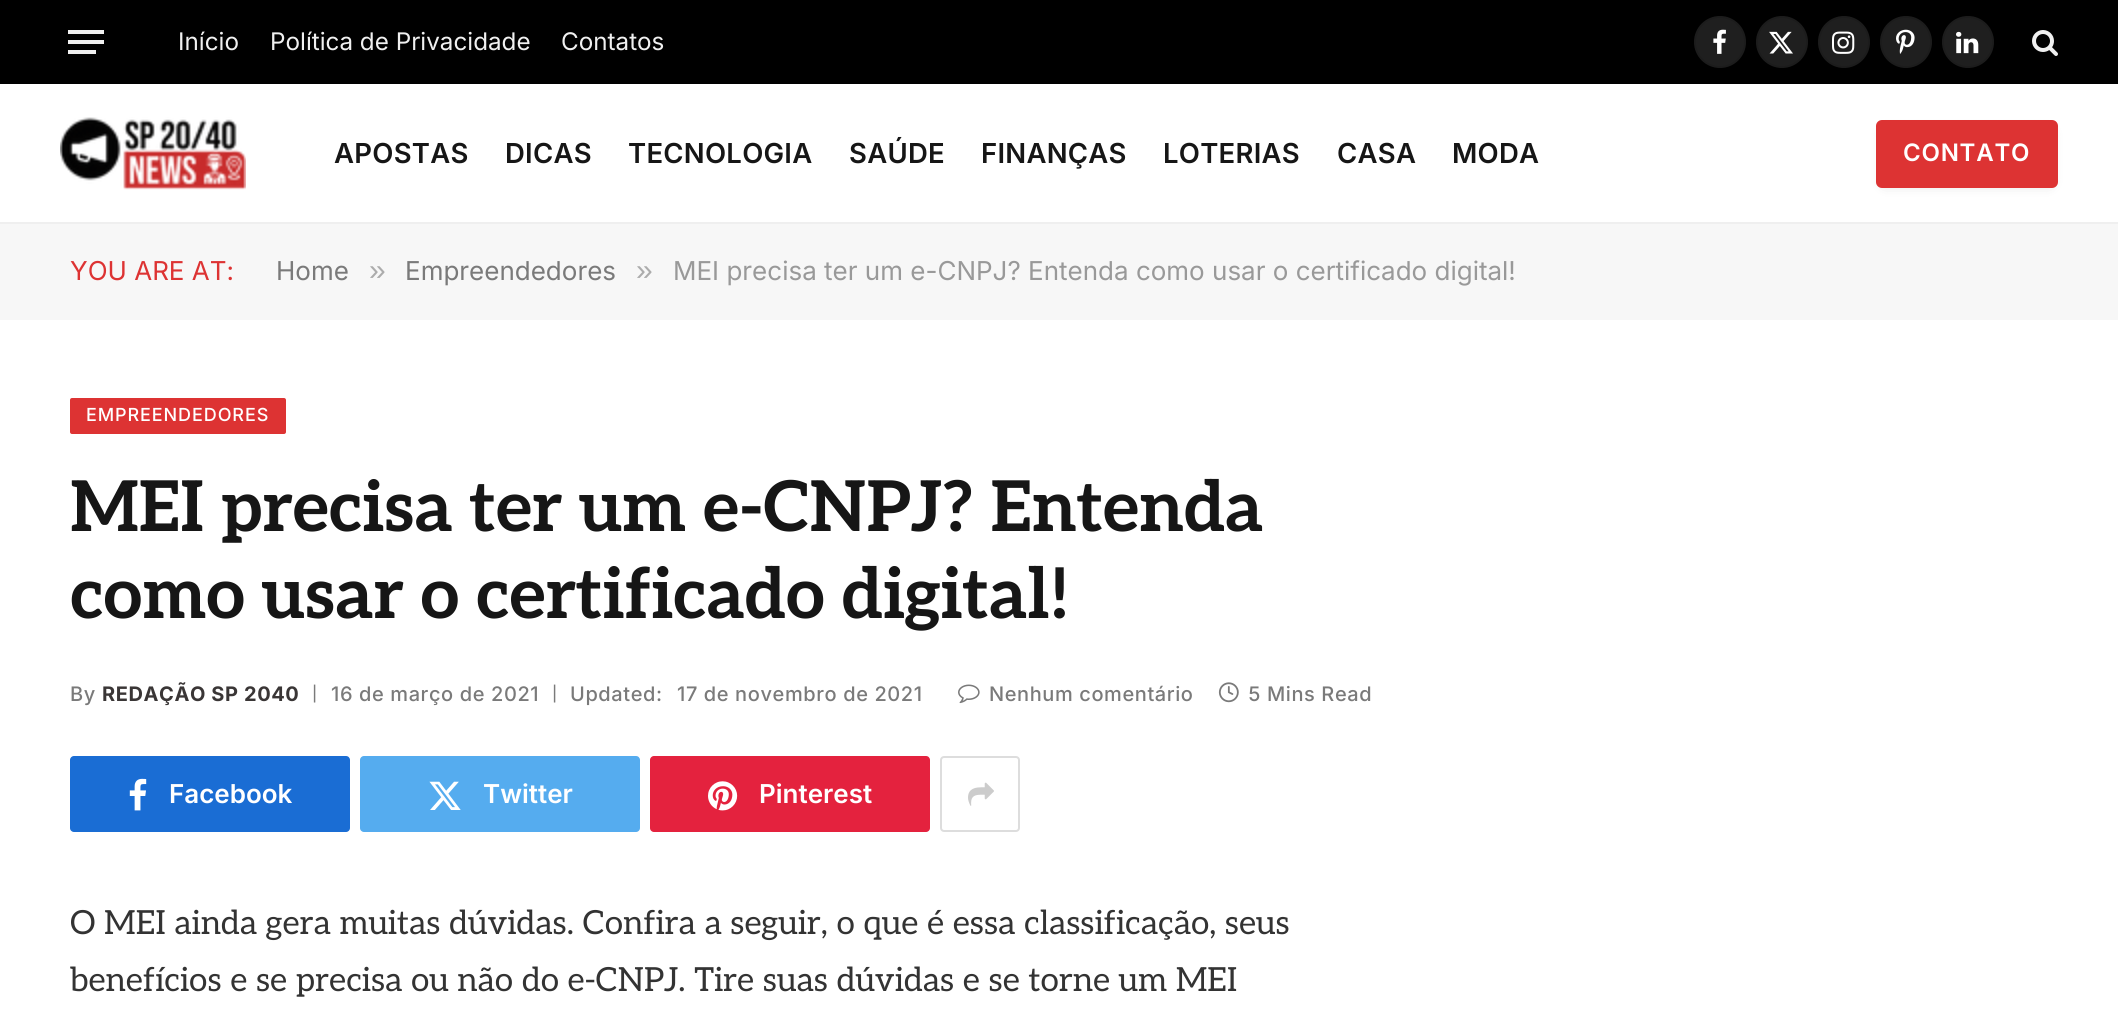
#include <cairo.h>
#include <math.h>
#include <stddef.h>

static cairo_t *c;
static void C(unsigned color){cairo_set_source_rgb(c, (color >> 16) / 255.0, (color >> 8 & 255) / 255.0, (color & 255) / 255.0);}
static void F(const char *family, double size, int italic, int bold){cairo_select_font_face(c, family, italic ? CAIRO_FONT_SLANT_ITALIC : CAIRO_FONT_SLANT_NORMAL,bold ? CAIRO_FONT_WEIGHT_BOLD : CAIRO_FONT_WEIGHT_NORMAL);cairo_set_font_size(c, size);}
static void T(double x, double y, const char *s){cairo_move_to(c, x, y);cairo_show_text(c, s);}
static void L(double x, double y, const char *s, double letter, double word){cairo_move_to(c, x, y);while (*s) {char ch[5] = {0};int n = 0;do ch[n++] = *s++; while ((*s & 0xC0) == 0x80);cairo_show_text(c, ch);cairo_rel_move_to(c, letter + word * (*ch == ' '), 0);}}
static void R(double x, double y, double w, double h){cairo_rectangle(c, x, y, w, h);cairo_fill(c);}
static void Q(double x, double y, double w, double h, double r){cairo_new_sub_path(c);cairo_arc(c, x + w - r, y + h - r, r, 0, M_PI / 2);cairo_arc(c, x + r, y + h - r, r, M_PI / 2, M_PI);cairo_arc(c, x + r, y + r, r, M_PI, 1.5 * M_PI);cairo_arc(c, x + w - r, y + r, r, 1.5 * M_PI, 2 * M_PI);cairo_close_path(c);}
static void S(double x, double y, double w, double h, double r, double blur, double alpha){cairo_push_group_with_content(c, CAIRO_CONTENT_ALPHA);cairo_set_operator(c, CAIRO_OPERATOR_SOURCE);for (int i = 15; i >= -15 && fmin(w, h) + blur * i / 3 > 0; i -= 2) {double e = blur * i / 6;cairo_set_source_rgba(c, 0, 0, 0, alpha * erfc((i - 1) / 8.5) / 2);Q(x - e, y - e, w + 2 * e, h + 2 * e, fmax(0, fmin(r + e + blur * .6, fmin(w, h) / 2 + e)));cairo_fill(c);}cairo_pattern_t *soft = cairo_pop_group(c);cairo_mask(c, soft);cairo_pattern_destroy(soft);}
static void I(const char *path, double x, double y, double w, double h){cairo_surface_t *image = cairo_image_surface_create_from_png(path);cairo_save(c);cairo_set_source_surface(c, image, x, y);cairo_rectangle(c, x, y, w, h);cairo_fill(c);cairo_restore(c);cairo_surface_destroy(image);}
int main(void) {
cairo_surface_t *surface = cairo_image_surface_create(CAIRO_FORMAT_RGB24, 2118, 1027);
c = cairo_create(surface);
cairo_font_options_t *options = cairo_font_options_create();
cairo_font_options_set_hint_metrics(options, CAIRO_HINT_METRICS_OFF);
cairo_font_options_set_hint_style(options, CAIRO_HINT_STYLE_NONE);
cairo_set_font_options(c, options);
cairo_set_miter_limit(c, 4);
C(0xffffff);
cairo_paint(c);
C(0x000000);
R(0,0,2118,84);
C(0xf0f0f0);
R(68,50,28,4);
R(68,30,36,4);
R(68,40,36,4);
F("Inter",24.25,0,0);
T(178,50,"Início");
T(270,50,"Política de Privacidade");
T(561,50,"Contatos");
C(0x1f1f1f);
cairo_new_path(c);
cairo_arc(c,1720,42,26,0,2 * M_PI);
cairo_fill(c);
cairo_arc(c,1720,42,25,0,2 * M_PI);
cairo_set_source_rgba(c,0,0,0,0.09);
cairo_stroke(c);
I("1.png",1713,29,13,25);
C(0x1f1f1f);
cairo_arc(c,1782,42,26,0,2 * M_PI);
cairo_fill(c);
cairo_arc(c,1782,42,25,0,2 * M_PI);
cairo_set_source_rgba(c,0,0,0,0.09);
cairo_stroke(c);
I("2.png",1769,31,24,23);
C(0x1f1f1f);
cairo_arc(c,1844,42,26,0,2 * M_PI);
cairo_fill(c);
cairo_arc(c,1844,42,25,0,2 * M_PI);
cairo_set_source_rgba(c,0,0,0,0.09);
cairo_stroke(c);
I("3.png",1832,31,23,23);
C(0x1f1f1f);
cairo_arc(c,1906,42,26,0,2 * M_PI);
cairo_fill(c);
cairo_arc(c,1906,42,25,0,2 * M_PI);
cairo_set_source_rgba(c,0,0,0,0.09);
cairo_stroke(c);
I("4.png",1896,29,19,25);
C(0x1f1f1f);
cairo_arc(c,1968,42,26,0,2 * M_PI);
cairo_fill(c);
cairo_arc(c,1968,42,25,0,2 * M_PI);
cairo_set_source_rgba(c,0,0,0,0.09);
cairo_stroke(c);
I("5.png",1956,31,23,23);
I("6.png",2032,30,26,26);
C(0xefefef);
R(0,222,2118,2);
I("7.png",60,117,186,73);
F("Inter SemiBold",27.5,0,0);
C(0x161616);
L(334,163,"APOSTAS",.25,0);
L(505,163,"DICAS",.25,0);
L(628,163,"TECNOLOGIA",.25,0);
L(849,163,"SAÚDE",.25,0);
L(981,163,"FINANÇAS",.25,0);
L(1163,163,"LOTERIAS",.25,0);
L(1337,163,"CASA",.25,0);
L(1452,163,"MODA",.25,0);
C(0x000000);
S(1884,132,166,52,0,7,.16);
C(0xdd3333);
Q(1876,120,182,68,6);
cairo_fill(c);
F("Inter SemiBold",24,0,0);
C(0xffffff);
L(1903,161,"CONTATO",.75,0);
C(0xf7f7f7);
R(0,224,2118,96);
F("Inter",26,0,0);
C(0xdd3333);
T(70,280,"YOU ARE AT:");
C(0x7a7a7a);
T(276,280,"Home");
F("Liberation Sans",30,0,0);
C(0xacacac);
T(369,280,"»");
F("Inter",26,0,0);
C(0x7a7a7a);
T(405,280,"Empreendedores");
F("Liberation Sans",30,0,0);
C(0xacacac);
T(636,280,"»");
F("Inter",26,0,0);
C(0x999999);
T(673,280,"MEI precisa ter um e-CNPJ? Entenda como usar o certificado digital!");
C(0xdd3333);
Q(70,398,216,36,2);
cairo_fill(c);
F("Inter Medium",18,0,0);
C(0xffffff);
L(86,421,"EMPREENDEDORES",.9,0);
F("Aleo",70,0,1);
C(0x161616);
L(70,531,"MEI precisa ter um e-CNPJ? Entenda",-.35,0);
L(70,618,"como usar o certificado digital!",-.35,0);
F("Inter Medium",20,0,0);
C(0x7a7a7a);
L(70,701,"By",.6,0);
F("Inter",20,0,1);
C(0x3a3636);
L(102,701,"REDAÇÃO SP 2040",.6,0);
F("Inter Medium",15,0,0);
C(0x7a7a7a);
T(312,699,"|");
F("Inter Medium",20,0,0);
L(331,701,"16 de março de 2021",.6,0);
F("Inter Medium",15,0,0);
T(552,699,"|");
F("Inter Medium",20,0,0);
L(570,701,"Updated:",.6,0);
L(677,701,"17 de novembro de 2021",.6,0);
I("8.png",958,684,22,20);
L(989,701,"Nenhum comentário",.6,0);
I("9.png",1218,682,21,21);
L(1248,701,"5 Mins Read",.6,0);
C(0x1a6dd4);
Q(70,756,280,76,4);
cairo_fill(c);
I("10.png",129,778,18,33);
F("Inter SemiBold",26,0,0);
C(0xffffff);
T(169,803,"Facebook");
C(0x55acef);
Q(360,756,280,76,4);
cairo_fill(c);
I("11.png",429,781,32,29);
C(0xffffff);
T(483,803,"Twitter");
C(0xe4223e);
Q(650,756,280,76,4);
cairo_fill(c);
I("12.png",708,781,30,30);
C(0xffffff);
T(759,803,"Pinterest");
Q(941,757,78,74,3);
C(0xdddddd);
cairo_stroke(c);
I("13.png",968,782,26,24);
F("Aleo",33.2,0,0);
C(0x333333);
T(70,934,"O MEI ainda gera muitas dúvidas. Confira a seguir, o que é essa classificação, seus");
T(70,991,"benefícios e se precisa ou não do e-CNPJ. Tire suas dúvidas e se torne um MEI");
cairo_surface_write_to_png(surface, "o.png");
cairo_font_options_destroy(options);
cairo_destroy(c);
cairo_surface_destroy(surface);
return 0;
}
